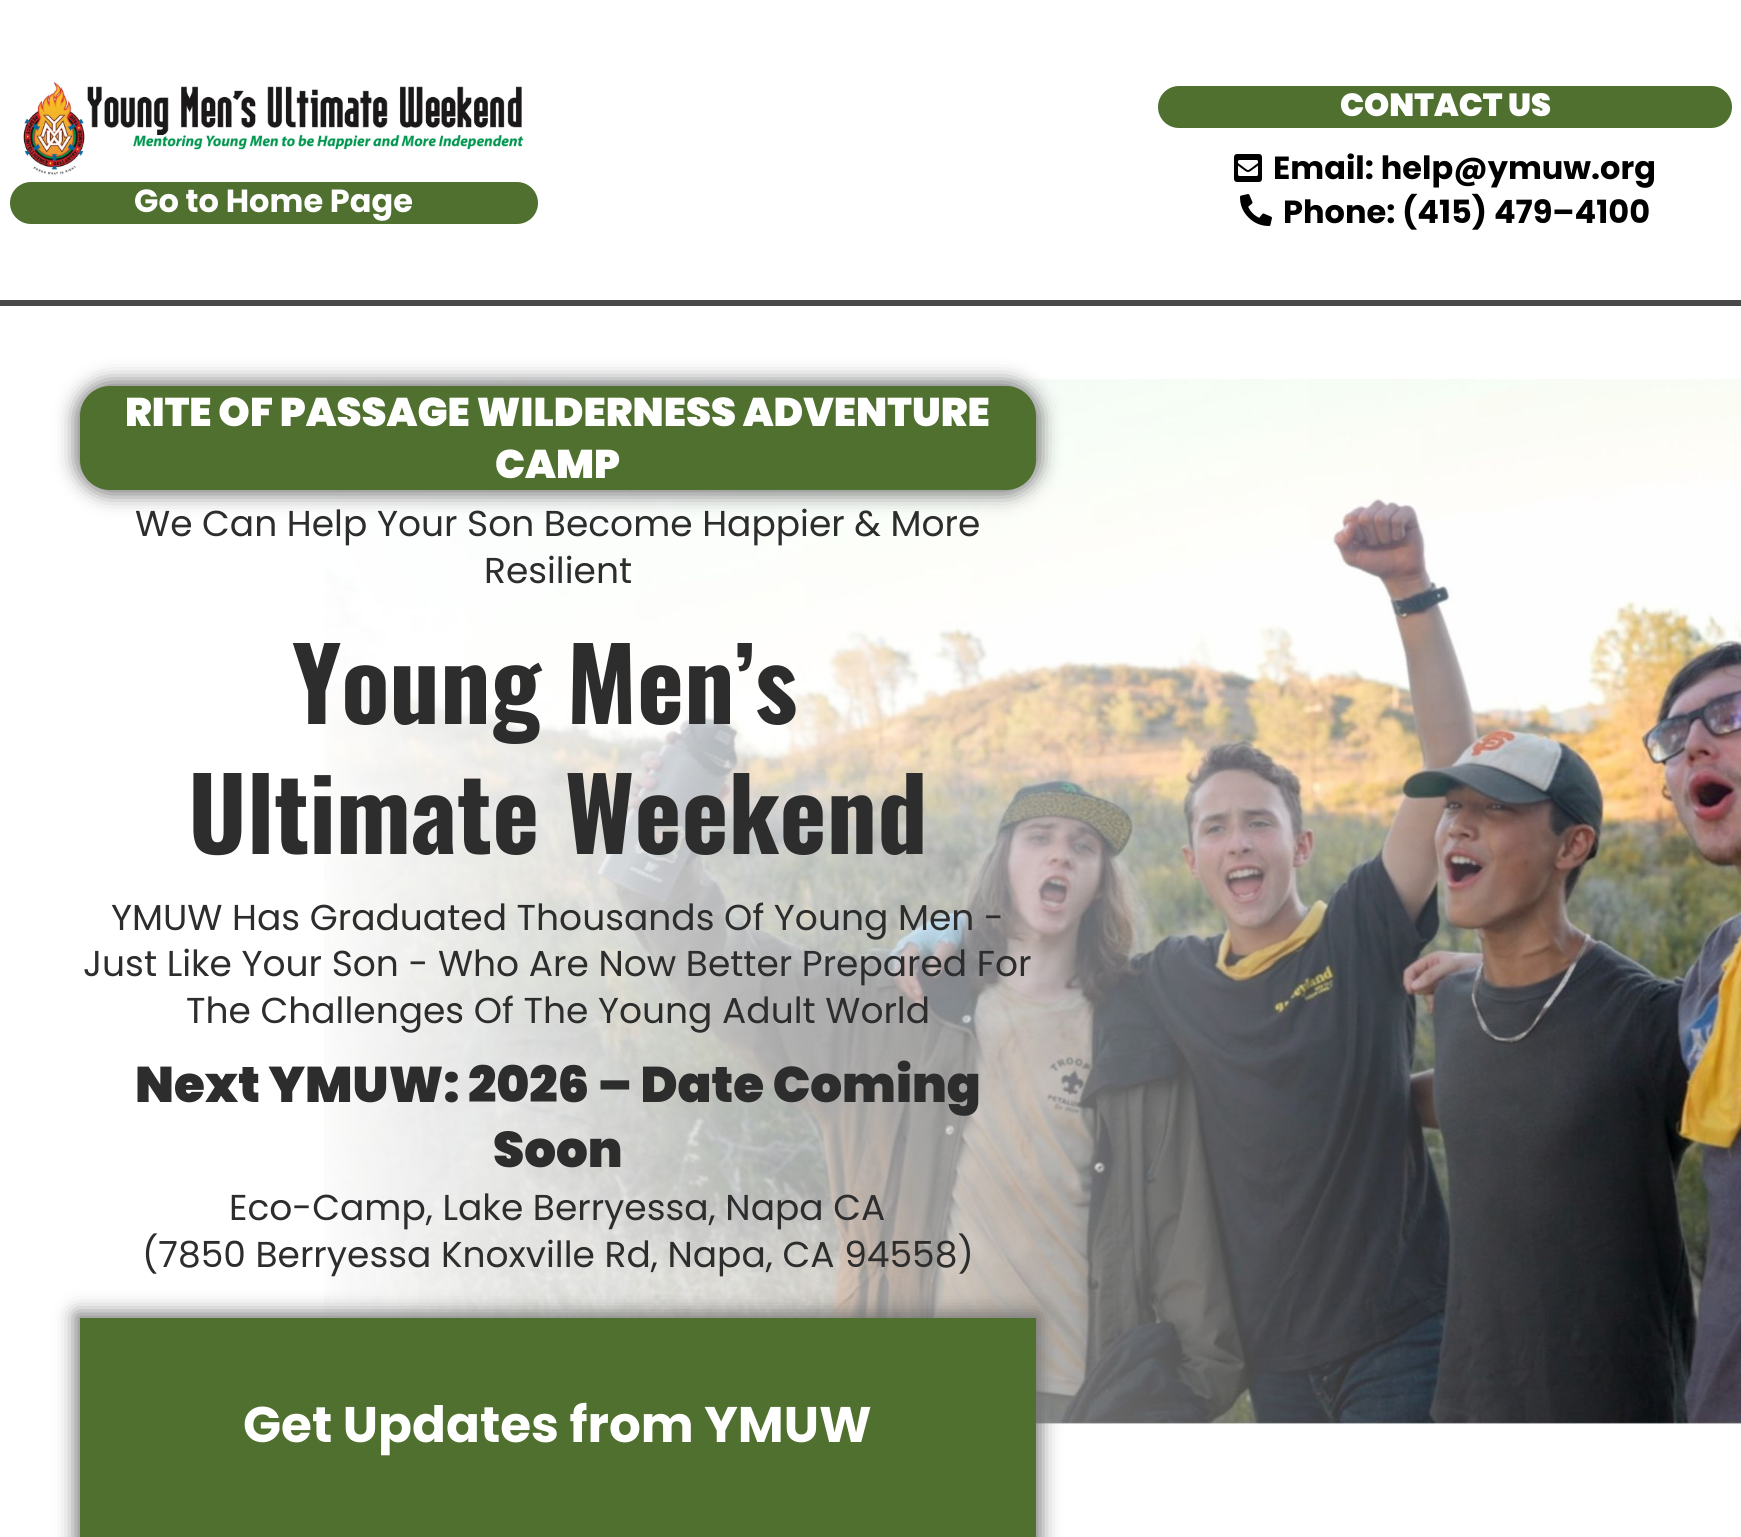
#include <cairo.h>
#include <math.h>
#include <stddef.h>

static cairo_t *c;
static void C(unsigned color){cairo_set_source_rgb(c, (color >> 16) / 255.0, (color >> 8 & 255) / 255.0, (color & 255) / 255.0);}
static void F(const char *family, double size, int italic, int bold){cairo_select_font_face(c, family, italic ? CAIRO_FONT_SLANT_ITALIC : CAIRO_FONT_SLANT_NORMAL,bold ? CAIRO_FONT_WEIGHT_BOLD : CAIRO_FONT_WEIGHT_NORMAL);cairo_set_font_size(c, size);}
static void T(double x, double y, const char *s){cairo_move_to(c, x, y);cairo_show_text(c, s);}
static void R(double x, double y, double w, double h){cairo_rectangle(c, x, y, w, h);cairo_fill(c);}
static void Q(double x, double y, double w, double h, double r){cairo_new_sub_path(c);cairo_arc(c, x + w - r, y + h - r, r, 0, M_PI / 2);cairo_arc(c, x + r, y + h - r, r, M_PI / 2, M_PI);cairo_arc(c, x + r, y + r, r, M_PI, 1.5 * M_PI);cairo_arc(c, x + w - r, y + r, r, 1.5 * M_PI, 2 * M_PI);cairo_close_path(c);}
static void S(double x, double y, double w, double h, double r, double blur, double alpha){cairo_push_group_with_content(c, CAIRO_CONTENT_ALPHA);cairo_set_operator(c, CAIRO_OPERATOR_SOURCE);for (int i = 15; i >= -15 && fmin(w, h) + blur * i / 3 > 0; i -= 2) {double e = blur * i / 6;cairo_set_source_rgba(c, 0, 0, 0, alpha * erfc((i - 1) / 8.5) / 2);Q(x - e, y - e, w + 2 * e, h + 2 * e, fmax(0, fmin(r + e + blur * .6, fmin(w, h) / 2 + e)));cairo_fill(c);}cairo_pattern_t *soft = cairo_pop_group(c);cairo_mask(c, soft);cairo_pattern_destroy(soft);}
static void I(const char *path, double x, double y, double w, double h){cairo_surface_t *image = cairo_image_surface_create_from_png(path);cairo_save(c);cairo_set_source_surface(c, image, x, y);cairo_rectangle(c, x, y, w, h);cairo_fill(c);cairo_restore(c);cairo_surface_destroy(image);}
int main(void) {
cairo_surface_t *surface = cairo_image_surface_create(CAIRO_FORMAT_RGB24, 1741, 1537);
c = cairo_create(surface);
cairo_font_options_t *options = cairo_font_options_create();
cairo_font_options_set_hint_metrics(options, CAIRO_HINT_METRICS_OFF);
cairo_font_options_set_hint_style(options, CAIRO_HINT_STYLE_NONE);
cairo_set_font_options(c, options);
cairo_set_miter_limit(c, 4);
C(0xffffff);
cairo_paint(c);
I("1.png",23,81,501,94);
C(0x50702f);
Q(10,182,528,42,21);
cairo_fill(c);
F("Poppins",32,0,1);
C(0xffffff);
T(134,212,"Go to Home Page");
C(0x50702f);
Q(1158,86,574,42,21);
cairo_fill(c);
F("Poppins Black",32,0,0);
C(0xffffff);
T(1340,116,"CONTACT US");
I("2.png",1234,154,28,28);
F("Poppins",32,0,1);
C(0x000000);
T(1273,179,"Email: help@ymuw.org");
I("3.png",1240,194,32,32);
T(1283,223,"Phone: (415) 479–4100");
C(0x484848);
R(0,300,1741,6);
I("4.png",0,306,1741,1231);
C(0x707070);
S(76,382,964,112,34,10,1);
C(0x50702f);
Q(80,386,956,104,30);
cairo_fill(c);
F("Poppins Black",40,0,0);
C(0xffffff);
T(125,426,"RITE OF PASSAGE WILDERNESS ADVENTURE");
T(495,478,"CAMP");
F("Poppins",36,0,0);
C(0x2d2d2d);
T(135,536,"We Can Help Your Son Become Happier & More");
T(484,583,"Resilient");
F("Oswald",100,0,1);
T(292,724,"Young Men’s");
T(188,854,"Ultimate Weekend");
F("Poppins",36,0,0);
T(111,930,"YMUW Has Graduated Thousands Of Young Men -");
T(83,976,"Just Like Your Son - Who Are Now Better Prepared For");
T(186,1023,"The Challenges Of The Young Adult World");
F("Poppins Black",50,0,0);
T(135,1102,"Next YMUW: 2026 – Date Coming");
T(493,1167,"Soon");
F("Poppins",36,0,0);
T(229,1220,"Eco-Camp, Lake Berryessa, Napa CA");
T(142,1267,"(7850 Berryessa Knoxville Rd, Napa, CA 94558)");
C(0x707070);
S(76,1314,964,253,0,10,1);
C(0x50702f);
R(80,1318,956,219);
F("Poppins",50,0,1);
C(0xffffff);
T(243,1442,"Get Updates from YMUW");
cairo_surface_write_to_png(surface, "o.png");
cairo_font_options_destroy(options);
cairo_destroy(c);
cairo_surface_destroy(surface);
return 0;
}
